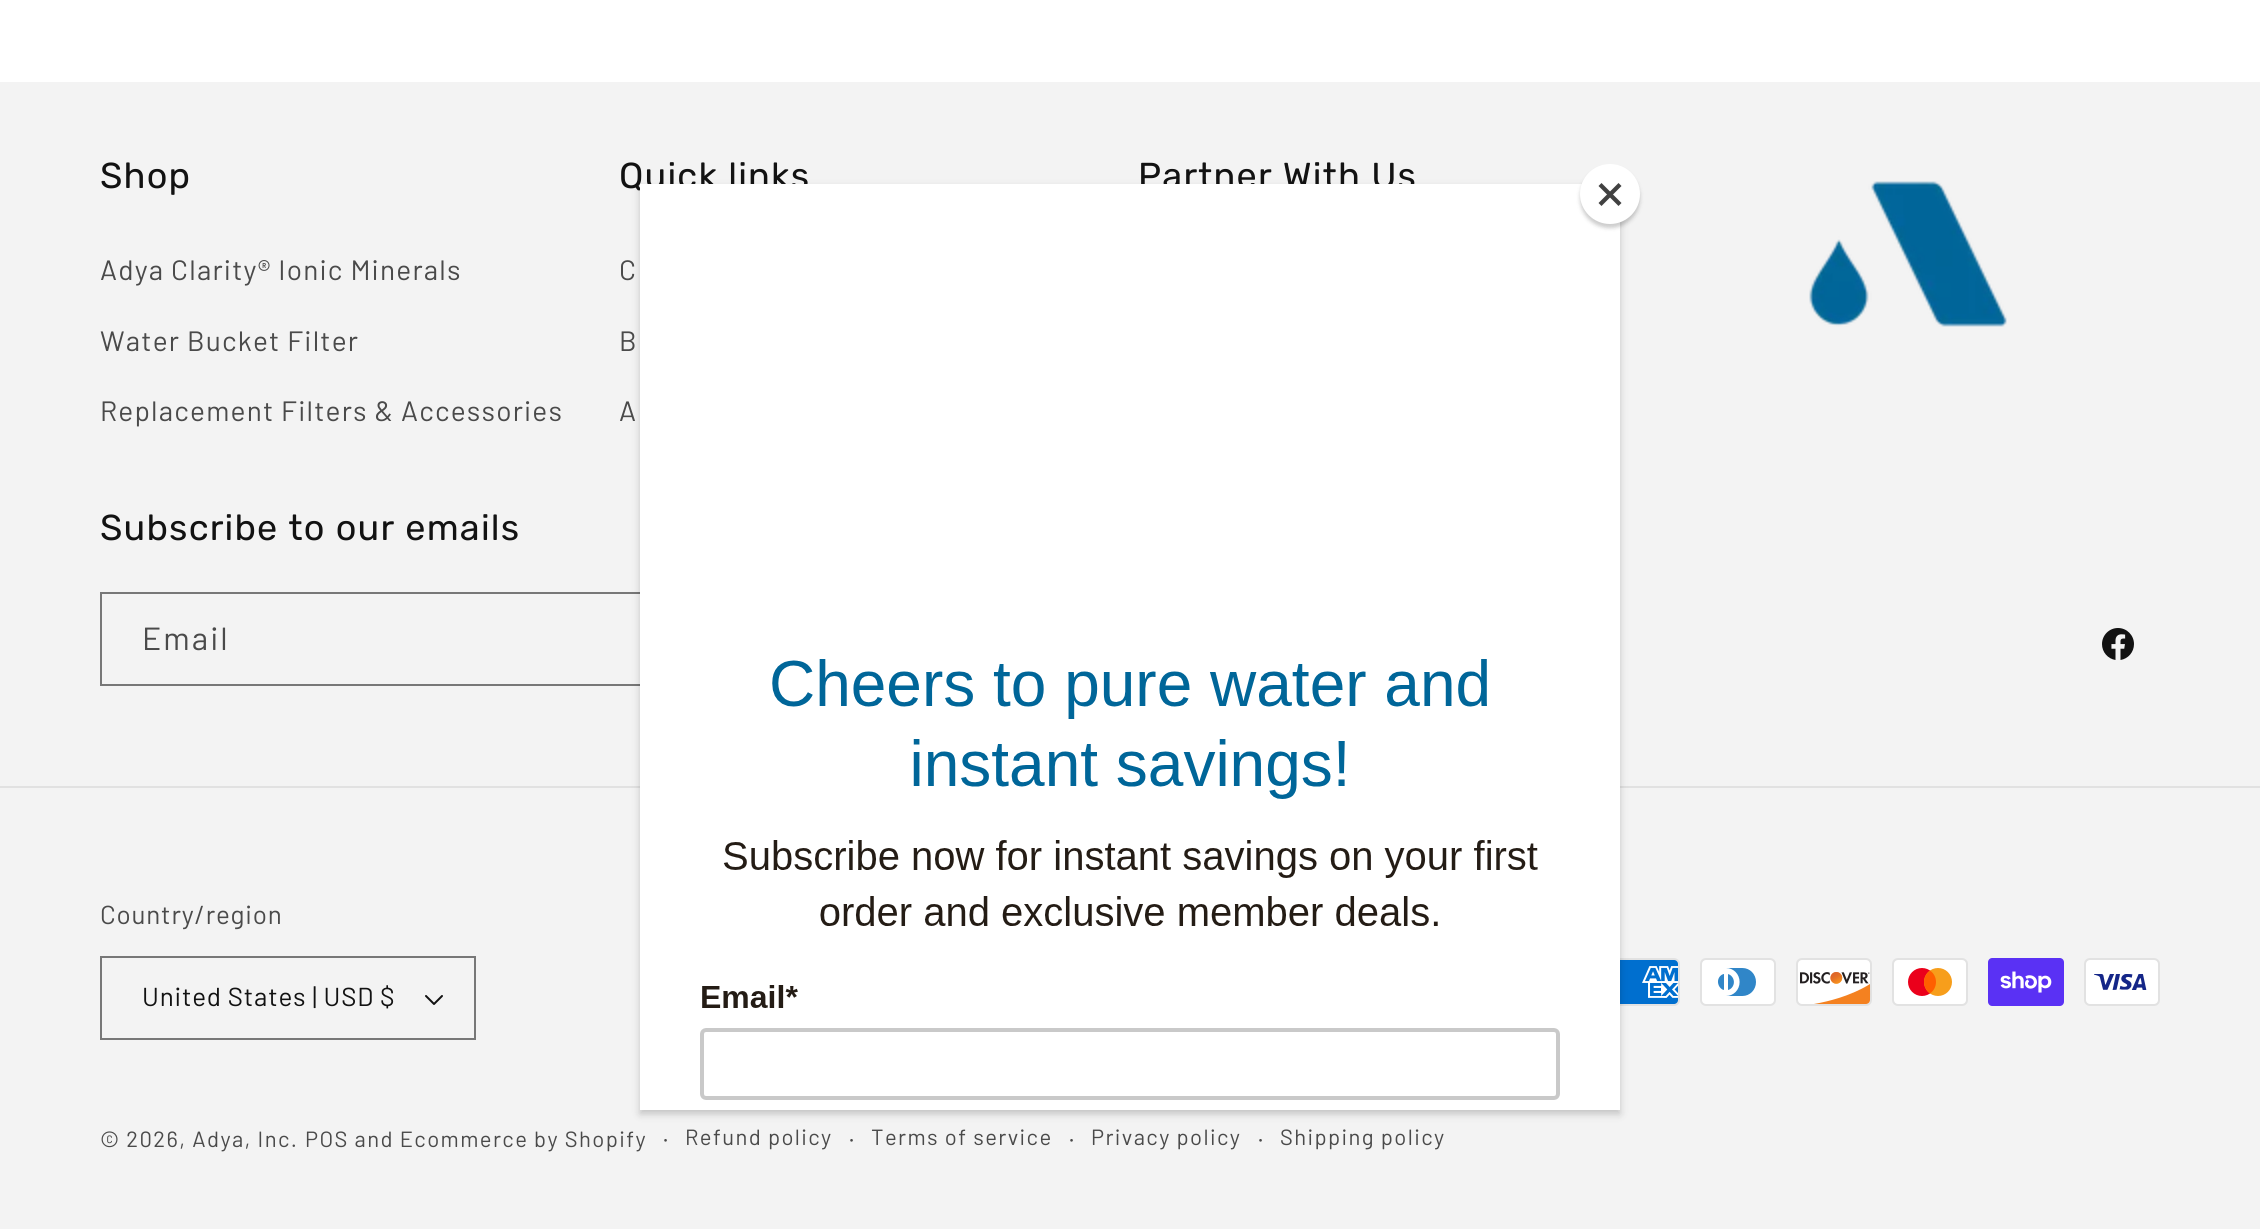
#include <cairo.h>
#include <math.h>
#include <stddef.h>

static cairo_t *c;
static void C(unsigned color){cairo_set_source_rgb(c, (color >> 16) / 255.0, (color >> 8 & 255) / 255.0, (color & 255) / 255.0);}
static void F(const char *family, double size, int italic, int bold){cairo_select_font_face(c, family, italic ? CAIRO_FONT_SLANT_ITALIC : CAIRO_FONT_SLANT_NORMAL,bold ? CAIRO_FONT_WEIGHT_BOLD : CAIRO_FONT_WEIGHT_NORMAL);cairo_set_font_size(c, size);}
static void L(double x, double y, const char *s, double letter, double word){cairo_move_to(c, x, y);while (*s) {char ch[5] = {0};int n = 0;do ch[n++] = *s++; while ((*s & 0xC0) == 0x80);cairo_show_text(c, ch);cairo_rel_move_to(c, letter + word * (*ch == ' '), 0);}}
static void R(double x, double y, double w, double h){cairo_rectangle(c, x, y, w, h);cairo_fill(c);}
static void Q(double x, double y, double w, double h, double r){cairo_new_sub_path(c);cairo_arc(c, x + w - r, y + h - r, r, 0, M_PI / 2);cairo_arc(c, x + r, y + h - r, r, M_PI / 2, M_PI);cairo_arc(c, x + r, y + r, r, M_PI, 1.5 * M_PI);cairo_arc(c, x + w - r, y + r, r, 1.5 * M_PI, 2 * M_PI);cairo_close_path(c);}
static void S(double x, double y, double w, double h, double r, double blur, double alpha){cairo_push_group_with_content(c, CAIRO_CONTENT_ALPHA);cairo_set_operator(c, CAIRO_OPERATOR_SOURCE);for (int i = 15; i >= -15 && fmin(w, h) + blur * i / 3 > 0; i -= 2) {double e = blur * i / 6;cairo_set_source_rgba(c, 0, 0, 0, alpha * erfc((i - 1) / 8.5) / 2);Q(x - e, y - e, w + 2 * e, h + 2 * e, fmax(0, fmin(r + e + blur * .6, fmin(w, h) / 2 + e)));cairo_fill(c);}cairo_pattern_t *soft = cairo_pop_group(c);cairo_mask(c, soft);cairo_pattern_destroy(soft);}
static void I(const char *path, double x, double y, double w, double h){cairo_surface_t *image = cairo_image_surface_create_from_png(path);cairo_save(c);cairo_set_source_surface(c, image, x, y);cairo_rectangle(c, x, y, w, h);cairo_fill(c);cairo_restore(c);cairo_surface_destroy(image);}
int main(void) {
cairo_surface_t *surface = cairo_image_surface_create(CAIRO_FORMAT_RGB24, 2260, 1229);
c = cairo_create(surface);
cairo_font_options_t *options = cairo_font_options_create();
cairo_font_options_set_hint_metrics(options, CAIRO_HINT_METRICS_OFF);
cairo_font_options_set_hint_style(options, CAIRO_HINT_STYLE_NONE);
cairo_set_font_options(c, options);
cairo_set_miter_limit(c, 4);
C(0xffffff);
cairo_paint(c);
C(0xf3f3f3);
R(0,82,2260,1147);
cairo_rectangle(c,101,593,718,92);
C(0x777777);
cairo_stroke(c);
C(0xe1e1e1);
R(0,786,2260,2);
I("5.png",1620,958,60,48);
C(0x000000);
S(640,188,980,926,0,4,.2);
F("Rubik",36,0,0);
C(0x121212);
L(619,188,"Quick links",1.2,0);
L(1138,188,"Partner With Us",1.2,0);
I("1.png",640,184,980,926);
C(0x000000);
S(1580,168,60,60,30,2,.2);
C(0xffffff);
cairo_arc(c,1610,194,30,0,2 * M_PI);
cairo_fill(c);
C(0x414141);
cairo_new_path(c);
cairo_move_to(c,1618.5,183);
cairo_line_to(c,1621.5,186);
cairo_line_to(c,1601.5,206);
cairo_line_to(c,1598.5,203);
cairo_close_path(c);
cairo_fill(c);
cairo_new_path(c);
cairo_move_to(c,1598.5,186);
cairo_line_to(c,1601.5,183);
cairo_line_to(c,1621.5,203);
cairo_line_to(c,1618.5,206);
cairo_close_path(c);
cairo_fill(c);
C(0x121212);
L(100,188,"Shop",1.2,0);
F("Barlow",28,0,0);
C(0x4a4a4a);
L(100,280,"Adya Clarity® Ionic Minerals",1.2,0);
L(100,351,"Water Bucket Filter",1.2,0);
L(100,421,"Replacement Filters & Accessories",1.2,0);
L(619,280,"C",1.2,0);
L(619,351,"B",1.2,0);
L(619,421,"A",1.2,0);
I("2.png",1809,181,198,146);
F("Rubik",36,0,0);
C(0x121212);
L(100,540,"Subscribe to our emails",1.2,0);
F("Barlow",32,0,0);
C(0x4a4a4a);
L(142,650,"Email",2,0);
I("3.png",2102,628,32,32);
F("Barlow",26,0,0);
L(100,924,"Country/region",.8,0);
I("4.png",425,995,18,10);
cairo_rectangle(c,101,957,374,82);
C(0x777777);
cairo_stroke(c);
C(0x121212);
L(142,1006,"United States | USD $",.8,0);
I("6.png",1700,958,76,48);
I("7.png",1796,958,76,48);
I("8.png",1892,958,76,48);
I("9.png",1988,958,76,48);
I("10.png",2084,958,76,48);
F("Barlow",22,0,0);
C(0x4a4a4a);
L(100,1147,"© 2026, Adya, Inc.",1.4,0);
L(305,1147,"POS and Ecommerce by Shopify",1.4,0);
F("Barlow",24,0,0);
L(663,1147,"·",1.4,0);
F("Barlow",22,0,0);
L(685,1145,"Refund policy",1.4,0);
F("Barlow",24,0,0);
L(849,1147,"·",1.4,0);
F("Barlow",22,0,0);
L(871,1145,"Terms of service",1.4,0);
F("Barlow",24,0,0);
L(1069,1147,"·",1.4,0);
F("Barlow",22,0,0);
L(1091,1145,"Privacy policy",1.4,0);
F("Barlow",24,0,0);
L(1258,1147,"·",1.4,0);
F("Barlow",22,0,0);
L(1280,1145,"Shipping policy",1.4,0);
cairo_surface_write_to_png(surface, "o.png");
cairo_font_options_destroy(options);
cairo_destroy(c);
cairo_surface_destroy(surface);
return 0;
}
